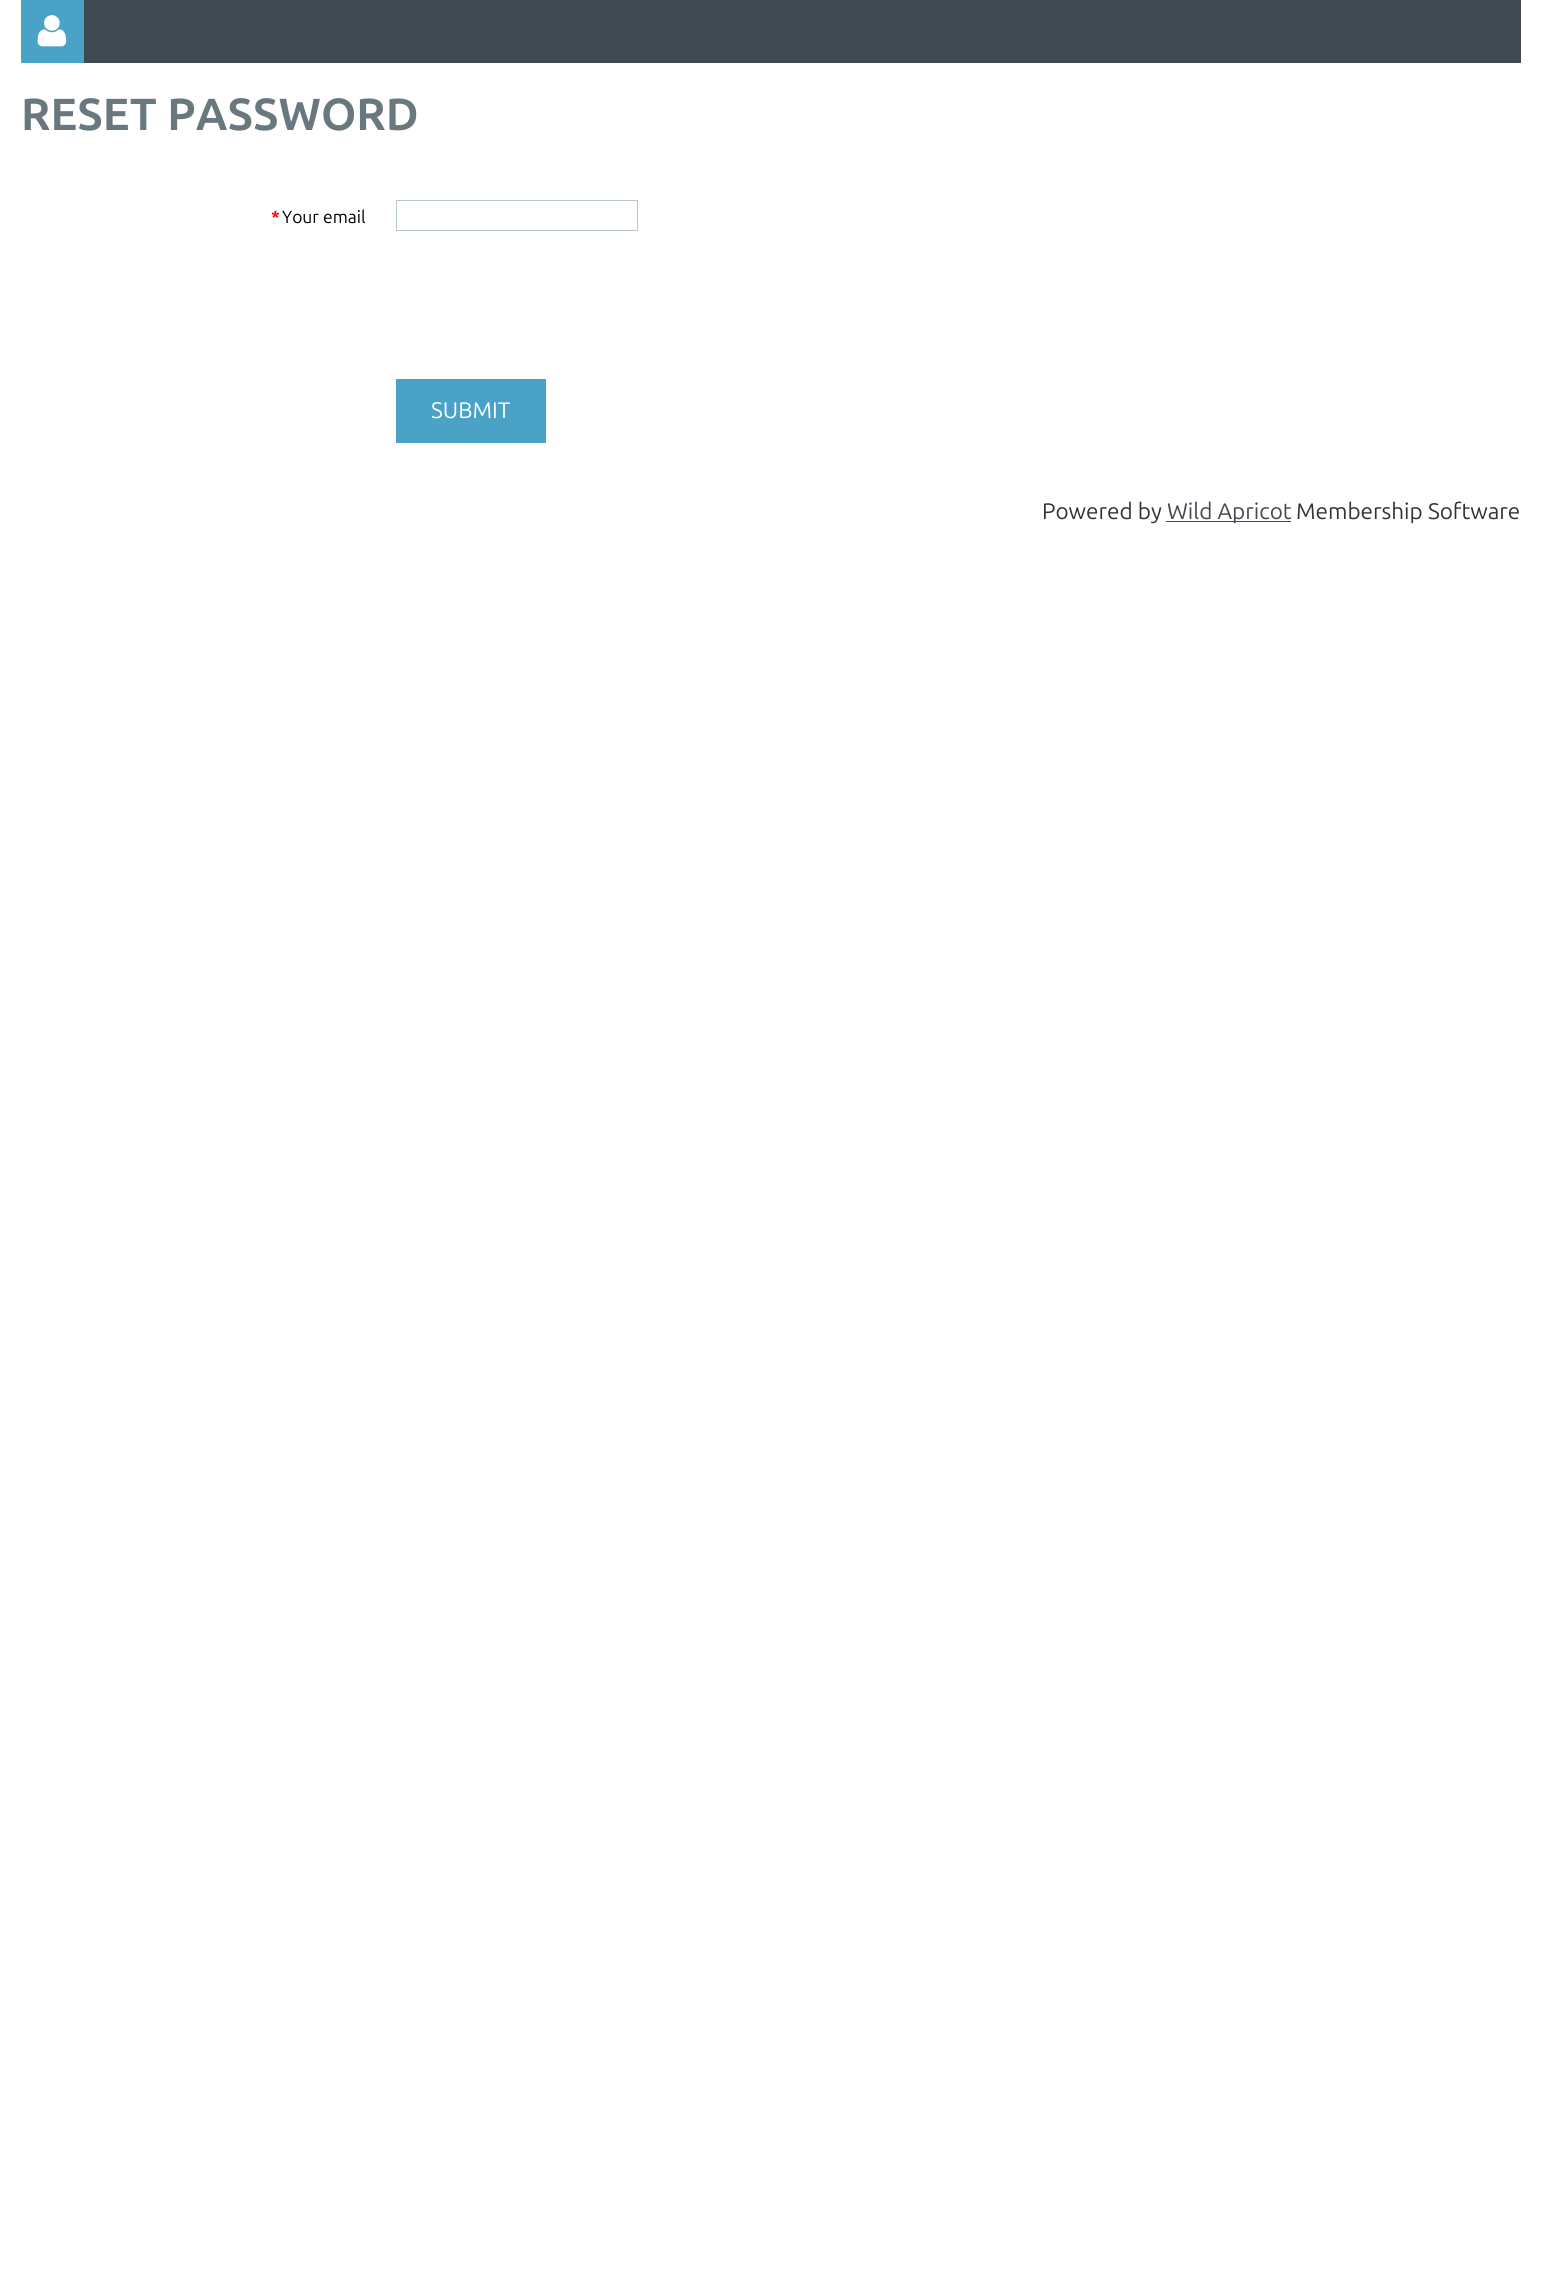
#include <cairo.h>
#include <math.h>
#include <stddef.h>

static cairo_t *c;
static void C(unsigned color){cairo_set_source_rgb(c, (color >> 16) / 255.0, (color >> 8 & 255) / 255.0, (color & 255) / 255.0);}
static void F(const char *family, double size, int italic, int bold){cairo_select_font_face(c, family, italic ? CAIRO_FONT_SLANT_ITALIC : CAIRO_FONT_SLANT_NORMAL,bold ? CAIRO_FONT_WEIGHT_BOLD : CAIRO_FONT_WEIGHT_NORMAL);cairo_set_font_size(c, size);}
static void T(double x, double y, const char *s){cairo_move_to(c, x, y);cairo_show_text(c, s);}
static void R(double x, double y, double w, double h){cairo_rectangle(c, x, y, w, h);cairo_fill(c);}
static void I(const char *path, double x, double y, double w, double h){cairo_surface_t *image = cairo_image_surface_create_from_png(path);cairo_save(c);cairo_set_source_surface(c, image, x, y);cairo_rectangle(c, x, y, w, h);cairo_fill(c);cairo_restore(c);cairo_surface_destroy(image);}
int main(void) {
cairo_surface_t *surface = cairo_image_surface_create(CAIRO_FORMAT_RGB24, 1541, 2287);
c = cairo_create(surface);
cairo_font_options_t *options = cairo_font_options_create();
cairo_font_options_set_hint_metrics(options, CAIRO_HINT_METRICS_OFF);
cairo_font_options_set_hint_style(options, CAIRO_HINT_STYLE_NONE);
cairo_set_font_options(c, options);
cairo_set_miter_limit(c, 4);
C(0xffffff);
cairo_paint(c);
C(0x414a53);
R(84,0,1437,63);
C(0x4aa2c6);
R(21,0,63,63);
I("1.png",37,15,30,32);
F("Ubuntu",45,0,1);
C(0x69777f);
T(21,130,"RESET PASSWORD");
F("Ubuntu",17.5,0,1);
C(0xff0000);
T(271,223,"*");
F("Ubuntu",17.5,0,0);
C(0x000000);
T(282,223,"Your email");
cairo_rectangle(c,396.5,200.5,241,30);
C(0xb8c6cd);
cairo_set_line_width(c,1);
cairo_stroke(c);
C(0x4aa2c6);
R(396,379,150,64);
F("Ubuntu",22.5,0,0);
C(0xffffff);
T(431,418,"SUBMIT");
C(0x333333);
T(1042,519,"Powered by");
C(0x414a53);
R(1166,521,125,1);
T(1167,519,"Wild Apricot");
C(0x333333);
T(1296,519,"Membership Software");
cairo_surface_write_to_png(surface, "o.png");
cairo_font_options_destroy(options);
cairo_destroy(c);
cairo_surface_destroy(surface);
return 0;
}
